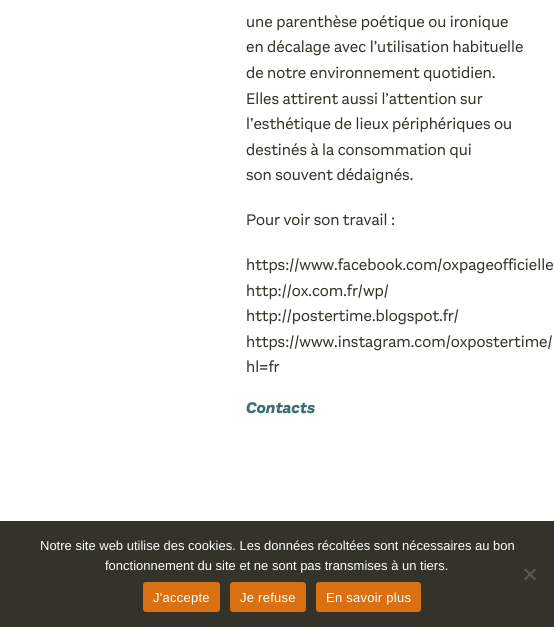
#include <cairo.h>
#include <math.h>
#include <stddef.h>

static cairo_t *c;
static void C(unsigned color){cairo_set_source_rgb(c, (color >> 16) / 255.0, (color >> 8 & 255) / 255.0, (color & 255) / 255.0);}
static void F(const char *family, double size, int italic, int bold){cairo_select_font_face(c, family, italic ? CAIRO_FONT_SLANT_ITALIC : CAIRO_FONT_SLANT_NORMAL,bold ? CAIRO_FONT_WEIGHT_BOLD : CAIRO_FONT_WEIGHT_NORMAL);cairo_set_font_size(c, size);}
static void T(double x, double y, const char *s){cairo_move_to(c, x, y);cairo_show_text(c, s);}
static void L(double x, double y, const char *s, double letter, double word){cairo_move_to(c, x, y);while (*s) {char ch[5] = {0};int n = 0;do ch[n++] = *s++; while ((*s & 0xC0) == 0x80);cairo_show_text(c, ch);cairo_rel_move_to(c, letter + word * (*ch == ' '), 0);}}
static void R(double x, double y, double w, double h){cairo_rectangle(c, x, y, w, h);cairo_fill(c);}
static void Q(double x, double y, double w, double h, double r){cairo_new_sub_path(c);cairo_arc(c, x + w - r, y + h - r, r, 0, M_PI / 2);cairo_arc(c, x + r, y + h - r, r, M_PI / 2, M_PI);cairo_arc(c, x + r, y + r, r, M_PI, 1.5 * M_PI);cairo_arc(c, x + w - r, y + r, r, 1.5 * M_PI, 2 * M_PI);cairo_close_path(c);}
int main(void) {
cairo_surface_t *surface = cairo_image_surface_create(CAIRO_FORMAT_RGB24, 554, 627);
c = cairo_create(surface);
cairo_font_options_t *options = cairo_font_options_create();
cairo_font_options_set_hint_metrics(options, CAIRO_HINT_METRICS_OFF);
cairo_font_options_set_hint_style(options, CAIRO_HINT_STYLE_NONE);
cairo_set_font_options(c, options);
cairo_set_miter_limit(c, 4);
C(0xffffff);
cairo_paint(c);
F("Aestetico",16,0,0);
C(0x333329);
T(246,27,"une parenthèse poétique ou ironique");
T(246,52,"en décalage avec l’utilisation habituelle");
T(246,78,"de notre environnement quotidien.");
T(246,104,"Elles attirent aussi l’attention sur");
T(246,129,"l’esthétique de lieux périphériques ou");
T(246,155,"destinés à la consommation qui");
T(246,180,"son souvent dédaignés.");
T(246,225,"Pour voir son travail :");
T(246,270,"https://www.facebook.com/oxpageofficielle");
T(246,296,"http://ox.com.fr/wp/");
T(246,321,"http://postertime.blogspot.fr/");
T(246,347,"https://www.instagram.com/oxpostertime/");
T(246,372,"hl=fr");
F("Aestetico ExtraBold",16,1,0);
C(0x3c6e71);
T(246,413,"Contacts");
C(0x333329);
R(0,521,554,106);
F("Liberation Sans",13,0,0);
C(0xffffff);
T(40,550,"Notre site web utilise des cookies. Les données récoltées sont nécessaires au bon");
T(105,570,"fonctionnement du site et ne sont pas transmises à un tiers.");
C(0x5a5a55);
cairo_new_path(c);
cairo_move_to(c,534.5,568.5);
cairo_line_to(c,536,570);
cairo_line_to(c,525.5,580.5);
cairo_line_to(c,524,579);
cairo_close_path(c);
cairo_fill(c);
cairo_new_path(c);
cairo_move_to(c,524,570);
cairo_line_to(c,525.5,568.5);
cairo_line_to(c,536,579);
cairo_line_to(c,534.5,580.5);
cairo_close_path(c);
cairo_fill(c);
C(0xd97011);
Q(143,582,77,30,3);
cairo_fill(c);
C(0xffffff);
L(153,602,"J'accepte",.25,0);
C(0xd97011);
Q(230,582,76,30,3);
cairo_fill(c);
C(0xffffff);
L(240,602,"Je refuse",.25,0);
C(0xd97011);
Q(316,582,105,30,3);
cairo_fill(c);
C(0xffffff);
L(326,602,"En savoir plus",.25,0);
cairo_surface_write_to_png(surface, "o.png");
cairo_font_options_destroy(options);
cairo_destroy(c);
cairo_surface_destroy(surface);
return 0;
}
